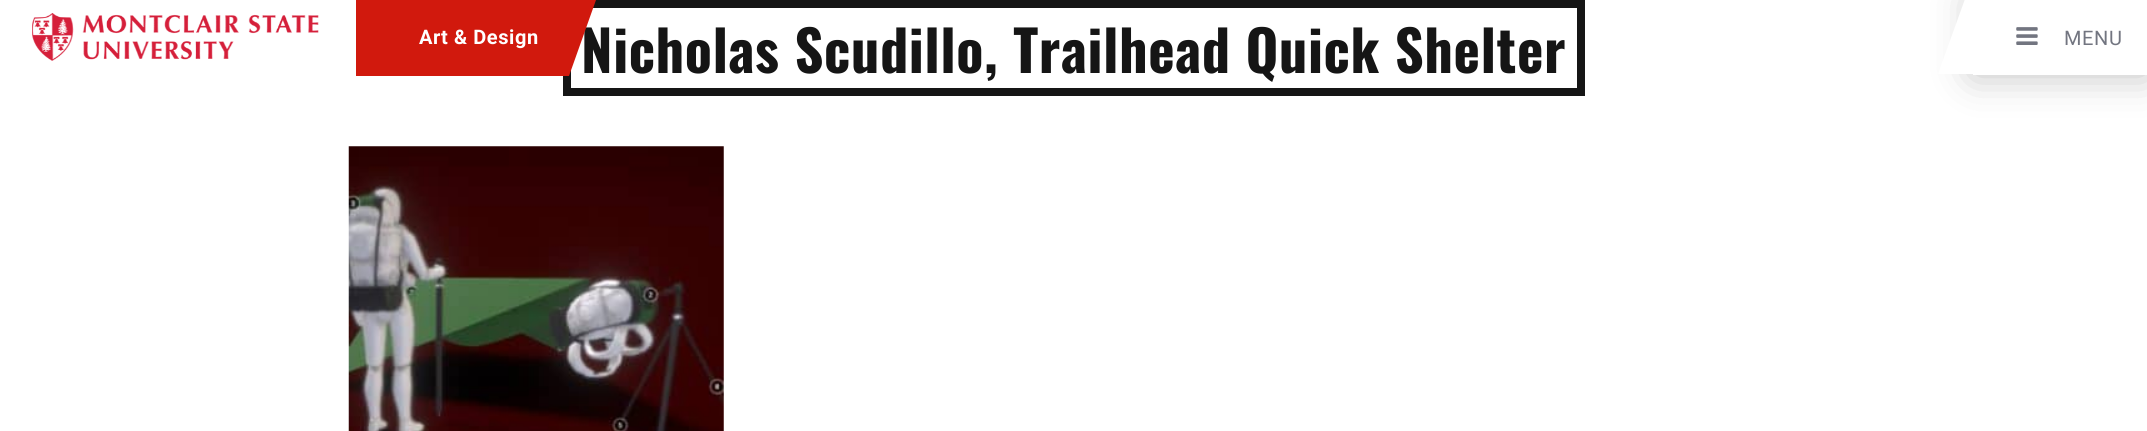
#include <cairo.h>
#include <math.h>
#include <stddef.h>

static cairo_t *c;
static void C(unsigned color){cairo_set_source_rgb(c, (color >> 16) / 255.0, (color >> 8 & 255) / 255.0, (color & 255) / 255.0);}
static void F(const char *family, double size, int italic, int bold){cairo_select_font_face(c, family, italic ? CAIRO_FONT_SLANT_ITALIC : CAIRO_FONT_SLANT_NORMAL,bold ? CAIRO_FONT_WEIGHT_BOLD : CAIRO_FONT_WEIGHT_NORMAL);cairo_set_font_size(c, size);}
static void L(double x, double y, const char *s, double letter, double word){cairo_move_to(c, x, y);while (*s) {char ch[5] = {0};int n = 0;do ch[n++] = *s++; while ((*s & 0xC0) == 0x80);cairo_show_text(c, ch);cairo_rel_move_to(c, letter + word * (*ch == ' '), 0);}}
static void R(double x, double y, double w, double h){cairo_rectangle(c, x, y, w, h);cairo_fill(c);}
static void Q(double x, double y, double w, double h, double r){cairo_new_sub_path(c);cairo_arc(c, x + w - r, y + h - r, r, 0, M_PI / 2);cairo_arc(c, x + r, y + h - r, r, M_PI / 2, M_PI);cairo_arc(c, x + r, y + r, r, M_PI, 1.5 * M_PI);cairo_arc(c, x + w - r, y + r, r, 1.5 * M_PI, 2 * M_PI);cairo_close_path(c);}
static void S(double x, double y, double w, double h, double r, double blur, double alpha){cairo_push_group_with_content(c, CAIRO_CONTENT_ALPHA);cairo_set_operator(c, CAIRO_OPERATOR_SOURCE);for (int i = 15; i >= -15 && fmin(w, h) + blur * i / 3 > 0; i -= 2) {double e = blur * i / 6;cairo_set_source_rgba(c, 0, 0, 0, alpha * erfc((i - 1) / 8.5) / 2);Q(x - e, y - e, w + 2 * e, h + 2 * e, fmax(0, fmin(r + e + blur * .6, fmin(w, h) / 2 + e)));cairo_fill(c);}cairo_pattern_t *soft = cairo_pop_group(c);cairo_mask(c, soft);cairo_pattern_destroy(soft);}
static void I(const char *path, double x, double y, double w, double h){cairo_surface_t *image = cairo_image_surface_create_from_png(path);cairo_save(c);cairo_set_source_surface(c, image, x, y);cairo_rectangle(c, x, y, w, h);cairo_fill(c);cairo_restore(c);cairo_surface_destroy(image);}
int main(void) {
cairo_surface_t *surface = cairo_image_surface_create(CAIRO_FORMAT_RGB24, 2147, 431);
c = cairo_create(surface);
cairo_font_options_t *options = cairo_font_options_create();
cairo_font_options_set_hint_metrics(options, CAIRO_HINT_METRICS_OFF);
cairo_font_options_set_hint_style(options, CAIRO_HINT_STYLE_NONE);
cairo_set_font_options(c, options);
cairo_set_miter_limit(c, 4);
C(0xffffff);
cairo_paint(c);
cairo_rectangle(c,567,4,1014,88);
C(0x151515);
cairo_set_line_width(c,8);
cairo_stroke(c);
F("Oswald",56.25,0,1);
L(581,73,"Nicholas Scudillo, Trailhead Quick Shelter",.6,0);
I("1.png",348,146,376,285);
I("2.png",32,13,287,48);
C(0xd1190d);
R(356,0,205,76);
F("Roboto",20,0,1);
C(0xffffff);
L(419,44,"Art & Design",.6,0);
C(0xd1190d);
cairo_new_path(c);
cairo_move_to(c,561,0);
cairo_line_to(c,596,0);
cairo_line_to(c,569,76);
cairo_line_to(c,534,76);
cairo_close_path(c);
cairo_fill(c);
cairo_save(c);
cairo_set_fill_rule(c,CAIRO_FILL_RULE_EVEN_ODD);
cairo_new_path(c);
cairo_move_to(c,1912,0);
cairo_line_to(c,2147,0);
cairo_line_to(c,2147,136);
cairo_line_to(c,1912,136);
cairo_close_path(c);
cairo_move_to(c,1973,-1);
cairo_line_to(c,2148,-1);
cairo_line_to(c,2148,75);
cairo_line_to(c,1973,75);
cairo_close_path(c);
cairo_clip(c);
C(0x000000);
S(1973,-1,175,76,0,20,.25);
cairo_restore(c);
C(0xffffff);
cairo_new_path(c);
cairo_move_to(c,1965,-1);
cairo_line_to(c,2005,-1);
cairo_line_to(c,1978,74);
cairo_line_to(c,1938,74);
cairo_close_path(c);
cairo_fill(c);
I("3.png",2016,27,22,18);
F("Roboto",20,0,0);
C(0x727580);
L(2064,45,"MENU",.6,0);
cairo_surface_write_to_png(surface, "o.png");
cairo_font_options_destroy(options);
cairo_destroy(c);
cairo_surface_destroy(surface);
return 0;
}
